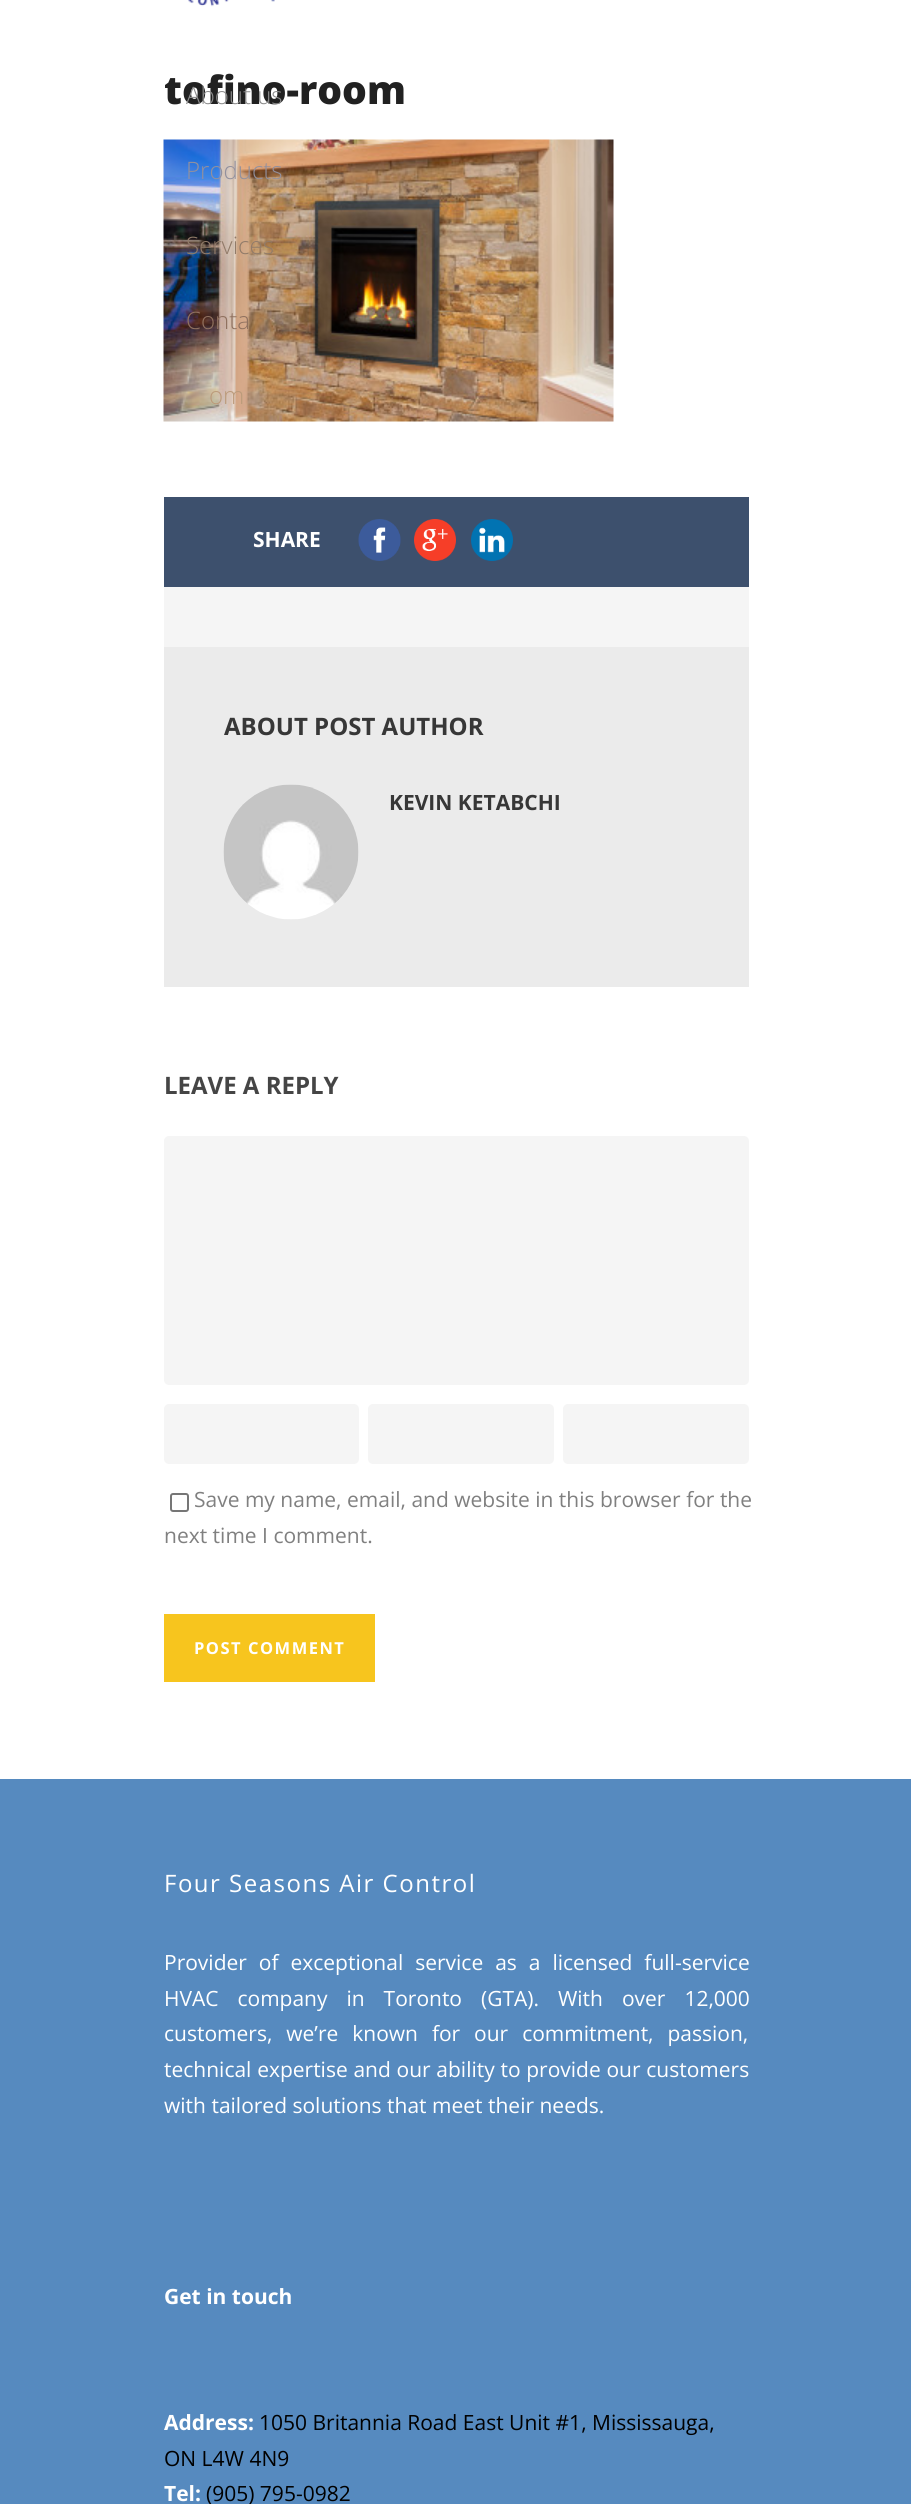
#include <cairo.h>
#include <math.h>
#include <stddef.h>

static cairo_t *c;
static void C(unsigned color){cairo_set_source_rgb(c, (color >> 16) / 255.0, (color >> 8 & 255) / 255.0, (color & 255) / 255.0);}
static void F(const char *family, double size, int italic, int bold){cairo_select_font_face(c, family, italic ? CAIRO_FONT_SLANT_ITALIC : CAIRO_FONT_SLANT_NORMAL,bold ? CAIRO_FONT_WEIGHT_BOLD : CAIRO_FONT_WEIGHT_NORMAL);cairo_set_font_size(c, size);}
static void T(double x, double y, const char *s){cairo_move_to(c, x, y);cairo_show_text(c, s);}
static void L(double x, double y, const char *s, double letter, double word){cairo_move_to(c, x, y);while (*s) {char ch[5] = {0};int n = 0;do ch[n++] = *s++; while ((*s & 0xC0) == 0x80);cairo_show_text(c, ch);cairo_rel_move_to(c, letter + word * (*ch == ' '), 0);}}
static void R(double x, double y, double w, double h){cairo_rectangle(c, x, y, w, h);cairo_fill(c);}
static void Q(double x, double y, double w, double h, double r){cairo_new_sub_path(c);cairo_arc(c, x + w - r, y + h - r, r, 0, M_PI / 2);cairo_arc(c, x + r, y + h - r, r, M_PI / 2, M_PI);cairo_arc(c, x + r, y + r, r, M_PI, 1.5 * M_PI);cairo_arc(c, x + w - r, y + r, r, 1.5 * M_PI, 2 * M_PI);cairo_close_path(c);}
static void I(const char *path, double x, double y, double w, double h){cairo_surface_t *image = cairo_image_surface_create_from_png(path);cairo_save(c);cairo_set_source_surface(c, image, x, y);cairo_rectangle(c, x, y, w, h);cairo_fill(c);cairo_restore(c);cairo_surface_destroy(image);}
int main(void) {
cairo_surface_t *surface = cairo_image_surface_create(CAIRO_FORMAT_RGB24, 911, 2504);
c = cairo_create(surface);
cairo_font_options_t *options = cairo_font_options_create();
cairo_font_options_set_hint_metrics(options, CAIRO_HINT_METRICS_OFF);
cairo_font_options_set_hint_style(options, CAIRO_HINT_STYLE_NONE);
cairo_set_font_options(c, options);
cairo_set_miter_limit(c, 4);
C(0xffffff);
cairo_paint(c);
F("Open Sans ExtraBold",39,0,0);
C(0x212121);
T(164,104,"tofino-room");
I("1.png",163,139,451,283);
C(0x3d506d);
R(164,497,585,90);
F("Open Sans",21,0,1);
C(0xffffff);
T(253,547,"SHARE");
I("2.png",358,519,43,42);
I("3.png",414,519,42,42);
I("4.png",471,519,42,42);
C(0xf5f5f5);
R(164,587,585,60);
C(0xebebeb);
R(164,647,585,340);
F("Open Sans",24,0,1);
C(0x373737);
T(224,735,"ABOUT POST AUTHOR");
I("5.png",223,784,136,136);
F("Open Sans",21,0,1);
T(389,810,"KEVIN KETABCHI");
F("Open Sans",24,0,1);
C(0x454545);
T(164,1094,"LEAVE A REPLY");
C(0xf5f5f5);
Q(164,1136,585,249,5);
cairo_fill(c);
Q(164,1404,195,60,5);
cairo_fill(c);
Q(368,1404,186,60,5);
cairo_fill(c);
Q(563,1404,186,60,5);
cairo_fill(c);
Q(171,1494,17,17,2);
C(0x767676);
cairo_stroke(c);
F("Open Sans",21,0,0);
C(0x808080);
T(194,1507,"Save my name, email, and website in this browser for the");
T(164,1543,"next time I comment.");
C(0xf7c51e);
R(164,1614,211,68);
F("Open Sans",16.5,0,1);
C(0xffffff);
L(194,1654,"POST COMMENT",1.5,0);
I("6.png",188,0,87,7);
F("Open Sans Light",24,0,0);
C(0x8b8b8b);
T(186,104,"About us");
C(0x92909d);
T(186,179,"Products");
C(0x917b69);
T(186,254,"Services");
C(0x90715f);
T(186,329,"Conta");
C(0xbb9a7a);
T(209,404,"om");
C(0x568abf);
R(0,1779,911,725);
F("Open Sans",24,0,0);
C(0xffffff);
L(164,1892,"Four Seasons Air Control",1.5,0);
F("Open Sans",21,0,0);
L(164,1970,"Provider of exceptional service as a licensed full-service",0,6.5);
L(164,2006,"HVAC company in Toronto (GTA). With over 12,000",0,13.5);
L(164,2041,"customers, we’re known for our commitment, passion,",0,8.5);
L(164,2077,"technical expertise and our ability to provide our customers",0,.25);
T(164,2113,"with tailored solutions that meet their needs.");
F("Open Sans",21,0,1);
T(164,2304,"Get in touch");
T(164,2430,"Address:");
F("Open Sans",21,0,0);
C(0x000000);
T(259,2430,"1050 Britannia Road East Unit #1, Mississauga,");
T(164,2466,"ON L4W 4N9");
F("Open Sans",21,0,1);
C(0xffffff);
T(164,2501,"Tel:");
F("Open Sans",21,0,0);
C(0x000000);
T(206,2501,"(905) 795-0982");
cairo_surface_write_to_png(surface, "o.png");
cairo_font_options_destroy(options);
cairo_destroy(c);
cairo_surface_destroy(surface);
return 0;
}
